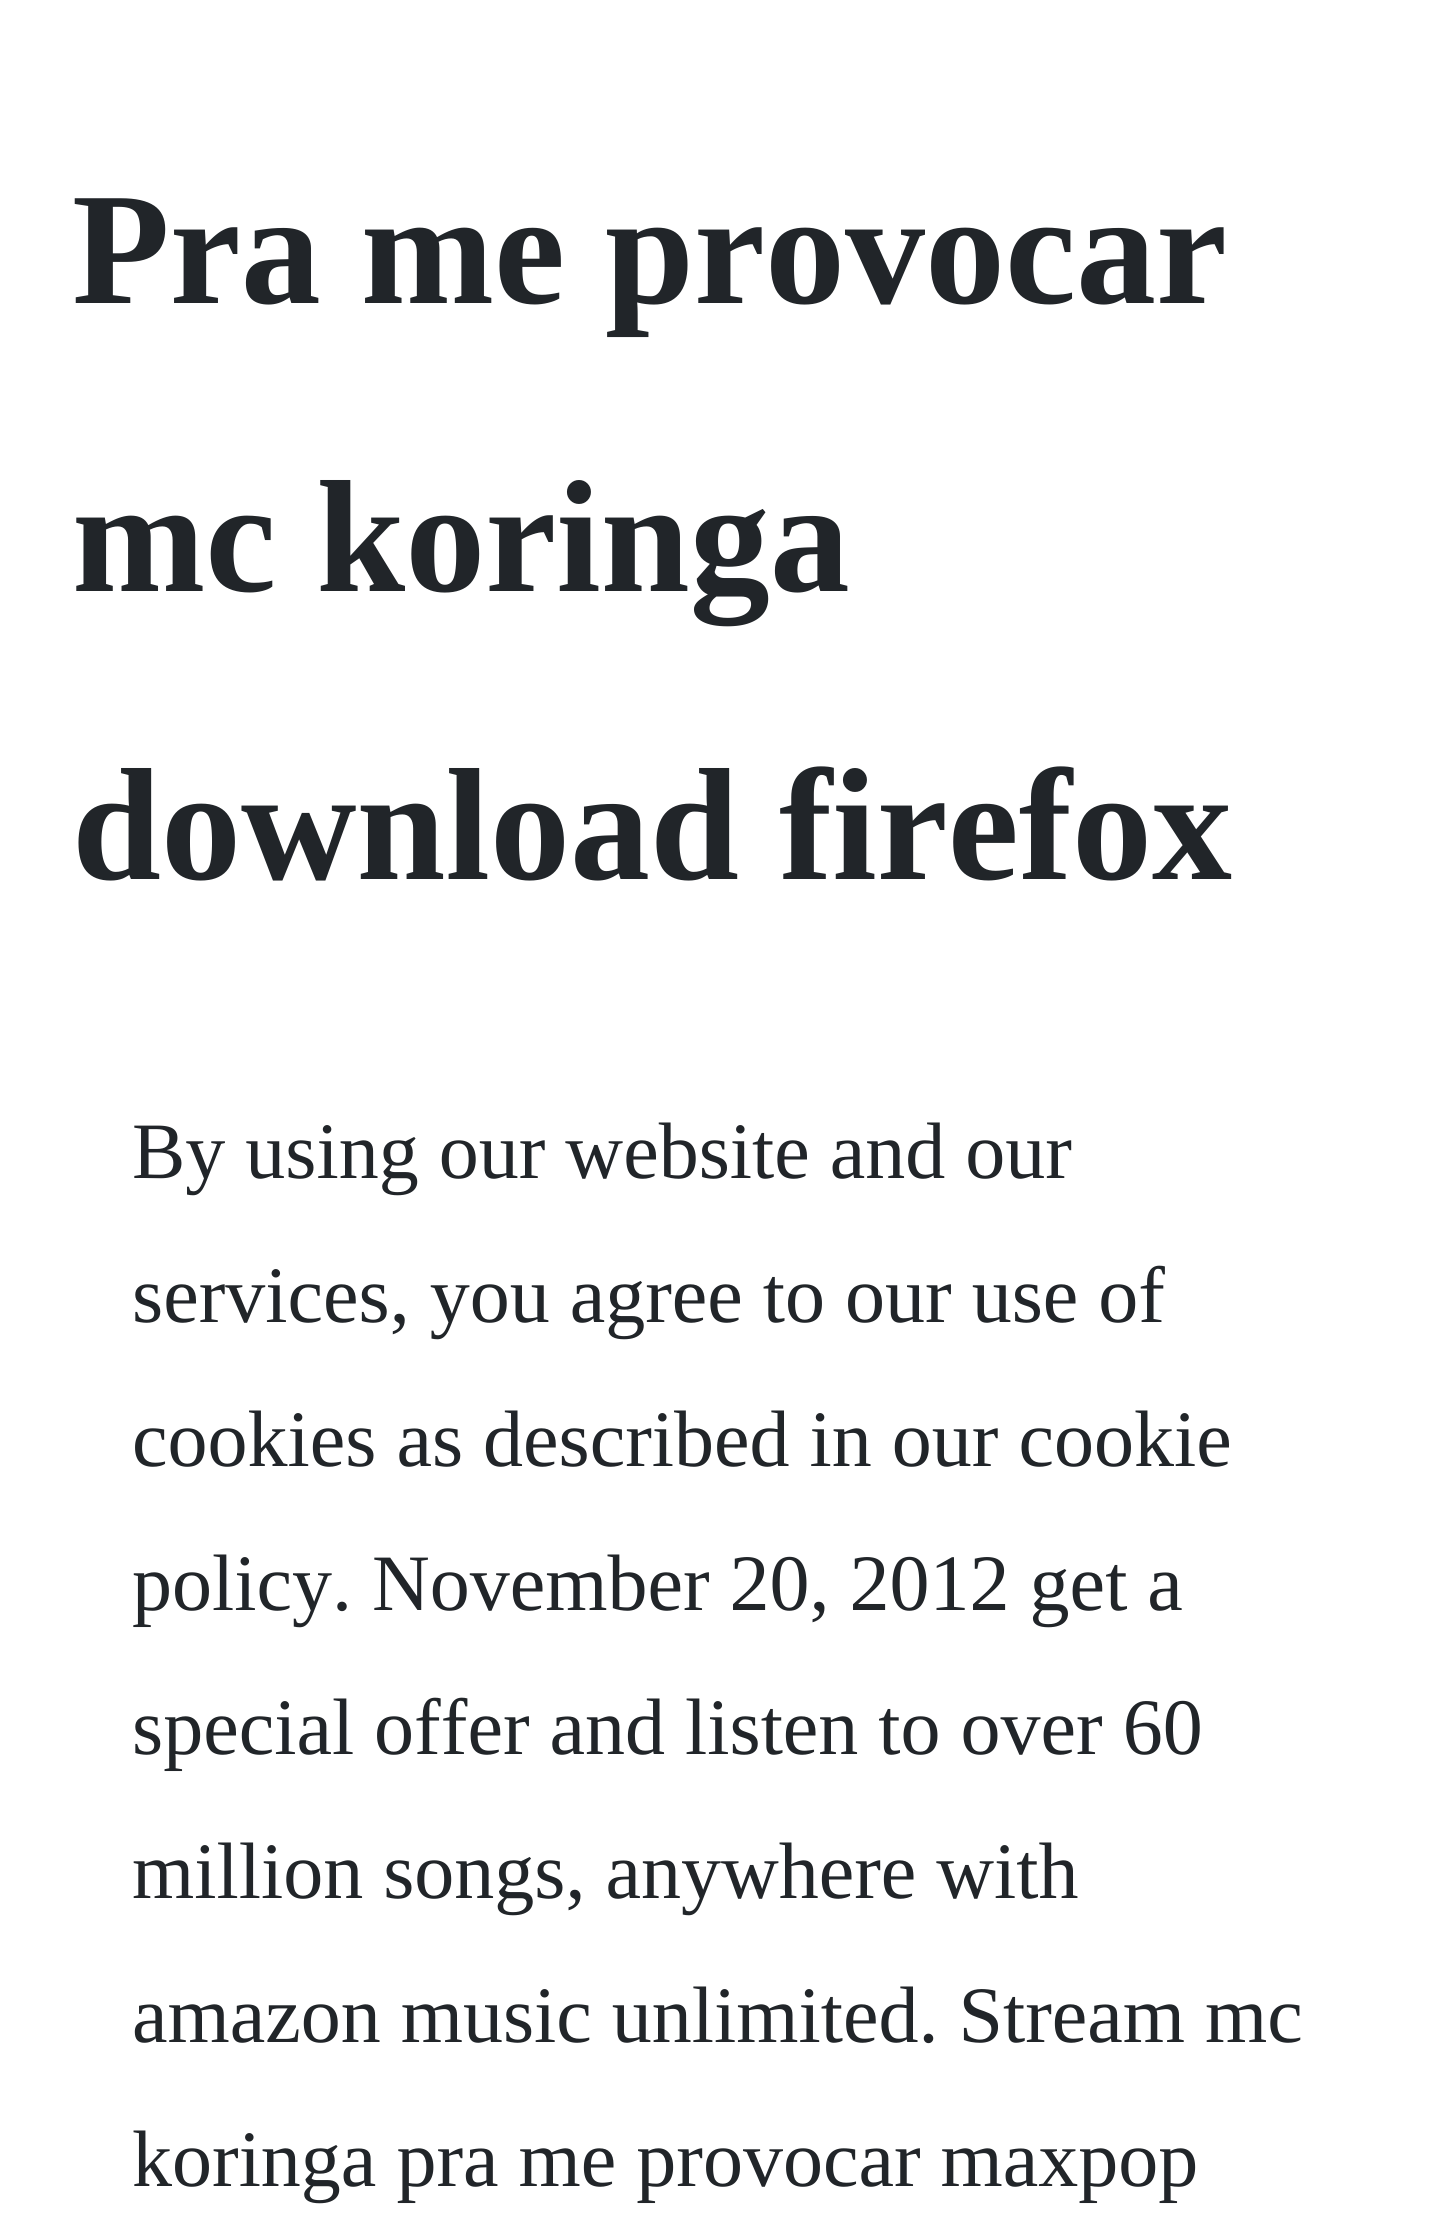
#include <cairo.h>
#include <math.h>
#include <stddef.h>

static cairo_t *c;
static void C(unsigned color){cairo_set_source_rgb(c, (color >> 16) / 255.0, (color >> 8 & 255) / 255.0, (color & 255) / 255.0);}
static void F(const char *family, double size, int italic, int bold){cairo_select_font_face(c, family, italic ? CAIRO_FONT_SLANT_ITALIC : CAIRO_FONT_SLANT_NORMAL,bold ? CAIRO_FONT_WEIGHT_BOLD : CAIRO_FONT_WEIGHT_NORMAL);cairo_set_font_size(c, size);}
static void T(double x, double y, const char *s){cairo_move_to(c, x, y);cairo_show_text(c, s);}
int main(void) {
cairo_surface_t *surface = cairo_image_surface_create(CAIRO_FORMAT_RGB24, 1436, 2213);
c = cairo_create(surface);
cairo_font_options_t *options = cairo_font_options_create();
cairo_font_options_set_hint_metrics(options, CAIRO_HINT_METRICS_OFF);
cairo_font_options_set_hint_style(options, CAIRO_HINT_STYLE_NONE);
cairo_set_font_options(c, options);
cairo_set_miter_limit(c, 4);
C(0xffffff);
cairo_paint(c);
F("Liberation Serif",160,0,1);
C(0x212529);
T(72,303,"Pra me provocar");
T(72,591,"mc koringa");
T(72,879,"download firefox");
F("Liberation Serif",80,0,0);
T(132,1178,"By using our website and our");
T(132,1322,"services, you agree to our use of");
T(132,1466,"cookies as described in our cookie");
T(132,1610,"policy. November 20, 2012 get a");
T(132,1754,"special offer and listen to over 60");
T(132,1898,"million songs, anywhere with");
T(132,2042,"amazon music unlimited. Stream mc");
T(132,2186,"koringa pra me provocar maxpop");
cairo_surface_write_to_png(surface, "o.png");
cairo_font_options_destroy(options);
cairo_destroy(c);
cairo_surface_destroy(surface);
return 0;
}
